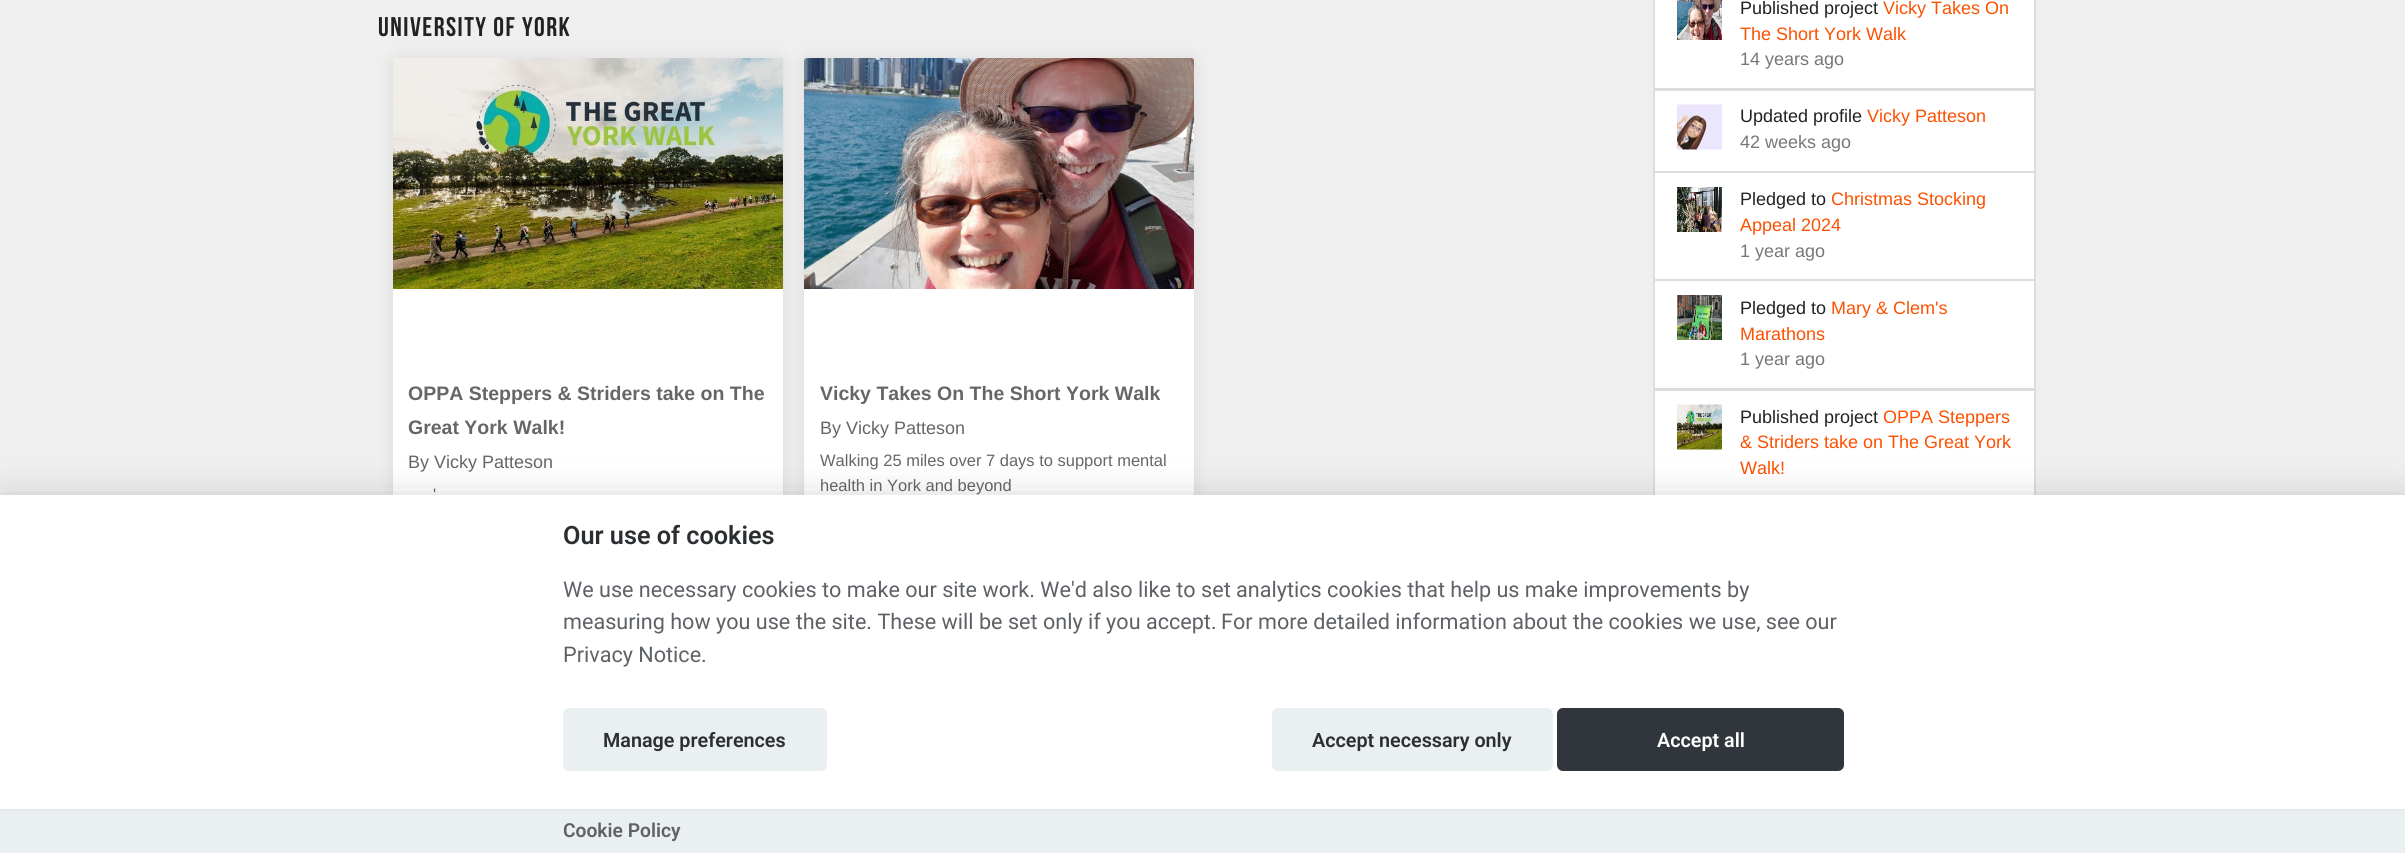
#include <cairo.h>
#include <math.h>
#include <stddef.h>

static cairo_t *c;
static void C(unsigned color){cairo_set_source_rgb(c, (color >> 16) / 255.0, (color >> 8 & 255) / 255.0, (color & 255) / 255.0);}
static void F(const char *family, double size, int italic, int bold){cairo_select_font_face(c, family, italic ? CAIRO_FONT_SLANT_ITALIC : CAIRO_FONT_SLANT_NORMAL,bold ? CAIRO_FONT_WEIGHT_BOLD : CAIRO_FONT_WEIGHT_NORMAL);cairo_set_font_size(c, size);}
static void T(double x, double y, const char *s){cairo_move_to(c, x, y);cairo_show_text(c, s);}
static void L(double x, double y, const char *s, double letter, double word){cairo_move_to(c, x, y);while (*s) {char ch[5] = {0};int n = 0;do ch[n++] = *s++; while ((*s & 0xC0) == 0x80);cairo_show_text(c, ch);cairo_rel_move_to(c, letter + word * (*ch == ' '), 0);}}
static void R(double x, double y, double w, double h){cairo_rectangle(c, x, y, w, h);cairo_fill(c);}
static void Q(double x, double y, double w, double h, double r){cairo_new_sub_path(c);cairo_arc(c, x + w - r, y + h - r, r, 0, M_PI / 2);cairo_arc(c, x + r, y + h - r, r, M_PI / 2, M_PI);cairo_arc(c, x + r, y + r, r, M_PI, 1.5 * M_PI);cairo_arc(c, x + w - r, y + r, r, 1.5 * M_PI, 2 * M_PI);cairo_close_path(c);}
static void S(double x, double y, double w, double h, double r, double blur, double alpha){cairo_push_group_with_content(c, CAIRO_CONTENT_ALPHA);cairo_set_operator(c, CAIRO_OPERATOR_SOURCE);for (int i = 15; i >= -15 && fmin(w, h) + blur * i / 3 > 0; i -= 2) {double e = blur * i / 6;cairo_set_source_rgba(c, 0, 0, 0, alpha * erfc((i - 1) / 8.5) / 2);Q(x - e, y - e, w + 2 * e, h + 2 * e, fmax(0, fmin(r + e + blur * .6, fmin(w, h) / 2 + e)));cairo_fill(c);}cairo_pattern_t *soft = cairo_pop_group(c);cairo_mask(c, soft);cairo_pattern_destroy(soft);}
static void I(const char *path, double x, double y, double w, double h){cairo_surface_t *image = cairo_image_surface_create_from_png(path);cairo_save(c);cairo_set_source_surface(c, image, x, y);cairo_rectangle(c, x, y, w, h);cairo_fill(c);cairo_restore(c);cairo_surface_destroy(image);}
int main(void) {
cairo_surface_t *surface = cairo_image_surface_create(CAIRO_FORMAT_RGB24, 2405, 853);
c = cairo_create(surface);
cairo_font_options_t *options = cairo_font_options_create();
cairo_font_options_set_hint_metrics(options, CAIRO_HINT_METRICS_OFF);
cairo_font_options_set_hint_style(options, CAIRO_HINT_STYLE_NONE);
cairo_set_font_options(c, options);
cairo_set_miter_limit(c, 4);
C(0xefefef);
cairo_paint(c);
F("Bebas Neue",27,0,1);
C(0x222222);
L(378,36,"University of York",1.5,0);
C(0x000000);
S(393,59,390,633,3,7,.1);
C(0xffffff);
Q(393,59,390,633,3);
cairo_fill(c);
I("1.png",393,58,390,231);
F("Liberation Sans",19.5,0,1);
C(0x666666);
T(408,400,"OPPA Steppers & Striders take on The");
T(408,434,"Great York Walk!");
F("Liberation Sans",18,0,0);
T(408,468,"By Vicky Patteson");
F("Liberation Sans",16.5,0,0);
T(433,500,"'");
C(0x000000);
S(804,59,390,633,3,7,.1);
C(0xffffff);
Q(804,59,390,633,3);
cairo_fill(c);
I("2.png",804,58,390,231);
F("Liberation Sans",19.5,0,1);
C(0x666666);
T(820,400,"Vicky Takes On The Short York Walk");
F("Liberation Sans",18,0,0);
T(820,434,"By Vicky Patteson");
F("Liberation Sans",16.5,0,0);
T(820,466,"Walking 25 miles over 7 days to support mental");
T(820,491,"health in York and beyond");
C(0xffffff);
cairo_rectangle(c,1654,-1,381,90);
cairo_fill_preserve(c);
C(0xdddddd);
cairo_stroke(c);
I("3.png",1677,0,45,40);
F("Liberation Sans",18,0,0);
C(0x222222);
T(1740,14,"Published project");
C(0xfd5000);
T(1883,14,"Vicky Takes On");
T(1740,40,"The Short York Walk");
C(0x777777);
T(1740,65,"14 years ago");
C(0xffffff);
cairo_rectangle(c,1654,90,381,82);
cairo_fill_preserve(c);
C(0xdddddd);
cairo_stroke(c);
I("4.png",1677,104,45,46);
C(0x222222);
T(1740,122,"Updated profile");
C(0xfd5000);
T(1867,122,"Vicky Patteson");
C(0x777777);
T(1740,148,"42 weeks ago");
C(0xffffff);
cairo_rectangle(c,1654,172,381,108);
cairo_fill_preserve(c);
C(0xdddddd);
cairo_stroke(c);
I("5.png",1677,187,45,45);
C(0x222222);
T(1740,205,"Pledged to");
C(0xfd5000);
T(1831,205,"Christmas Stocking");
T(1740,231,"Appeal 2024");
C(0x777777);
T(1740,257,"1 year ago");
C(0xffffff);
cairo_rectangle(c,1654,280,381,109);
cairo_fill_preserve(c);
C(0xdddddd);
cairo_stroke(c);
I("6.png",1677,295,45,45);
C(0x222222);
T(1740,314,"Pledged to");
C(0xfd5000);
T(1831,314,"Mary & Clem's");
T(1740,340,"Marathons");
C(0x777777);
T(1740,365,"1 year ago");
C(0xffffff);
R(1655,391,379,104);
cairo_rectangle(c,1654,390,381,133);
C(0xdddddd);
cairo_stroke(c);
I("7.png",1677,404,45,46);
C(0x222222);
T(1740,423,"Published project");
C(0xfd5000);
T(1883,423,"OPPA Steppers");
T(1740,448,"& Striders take on The Great York");
T(1740,474,"Walk!");
C(0x000002);
S(0,510,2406,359,0,22.5,.3);
C(0xffffff);
R(0,495,2405,314);
F("Roboto SemiBold",25.25,0,0);
C(0x2c2f31);
T(563,544,"Our use of cookies");
F("Roboto",21.6,0,0);
C(0x5e6266);
T(563,597,"We use necessary cookies to make our site work. We'd also like to set analytics cookies that help us make improvements by");
T(563,629,"measuring how you use the site. These will be set only if you accept.");
T(1221,629,"For more detailed information about the cookies we use, see our");
T(563,662,"Privacy Notice.");
C(0xeaeff2);
Q(564,709,262,61,5);
cairo_fill_preserve(c);
cairo_stroke(c);
F("Roboto SemiBold",19.75,0,0);
C(0x2c2f31);
T(603,747,"Manage preferences");
C(0xeaeff2);
Q(1273,709,279,61,5);
cairo_fill_preserve(c);
cairo_stroke(c);
C(0x2c2f31);
T(1312,747,"Accept necessary only");
C(0x30363c);
Q(1558,709,285,61,5);
cairo_fill_preserve(c);
cairo_stroke(c);
C(0xffffff);
T(1657,747,"Accept all");
C(0xeaeff2);
R(0,811,2405,42);
C(0xe4eaed);
R(0,809,2405,2);
F("Roboto SemiBold",19.25,0,0);
C(0x5e6266);
T(563,837,"Cookie Policy");
cairo_surface_write_to_png(surface, "o.png");
cairo_font_options_destroy(options);
cairo_destroy(c);
cairo_surface_destroy(surface);
return 0;
}
